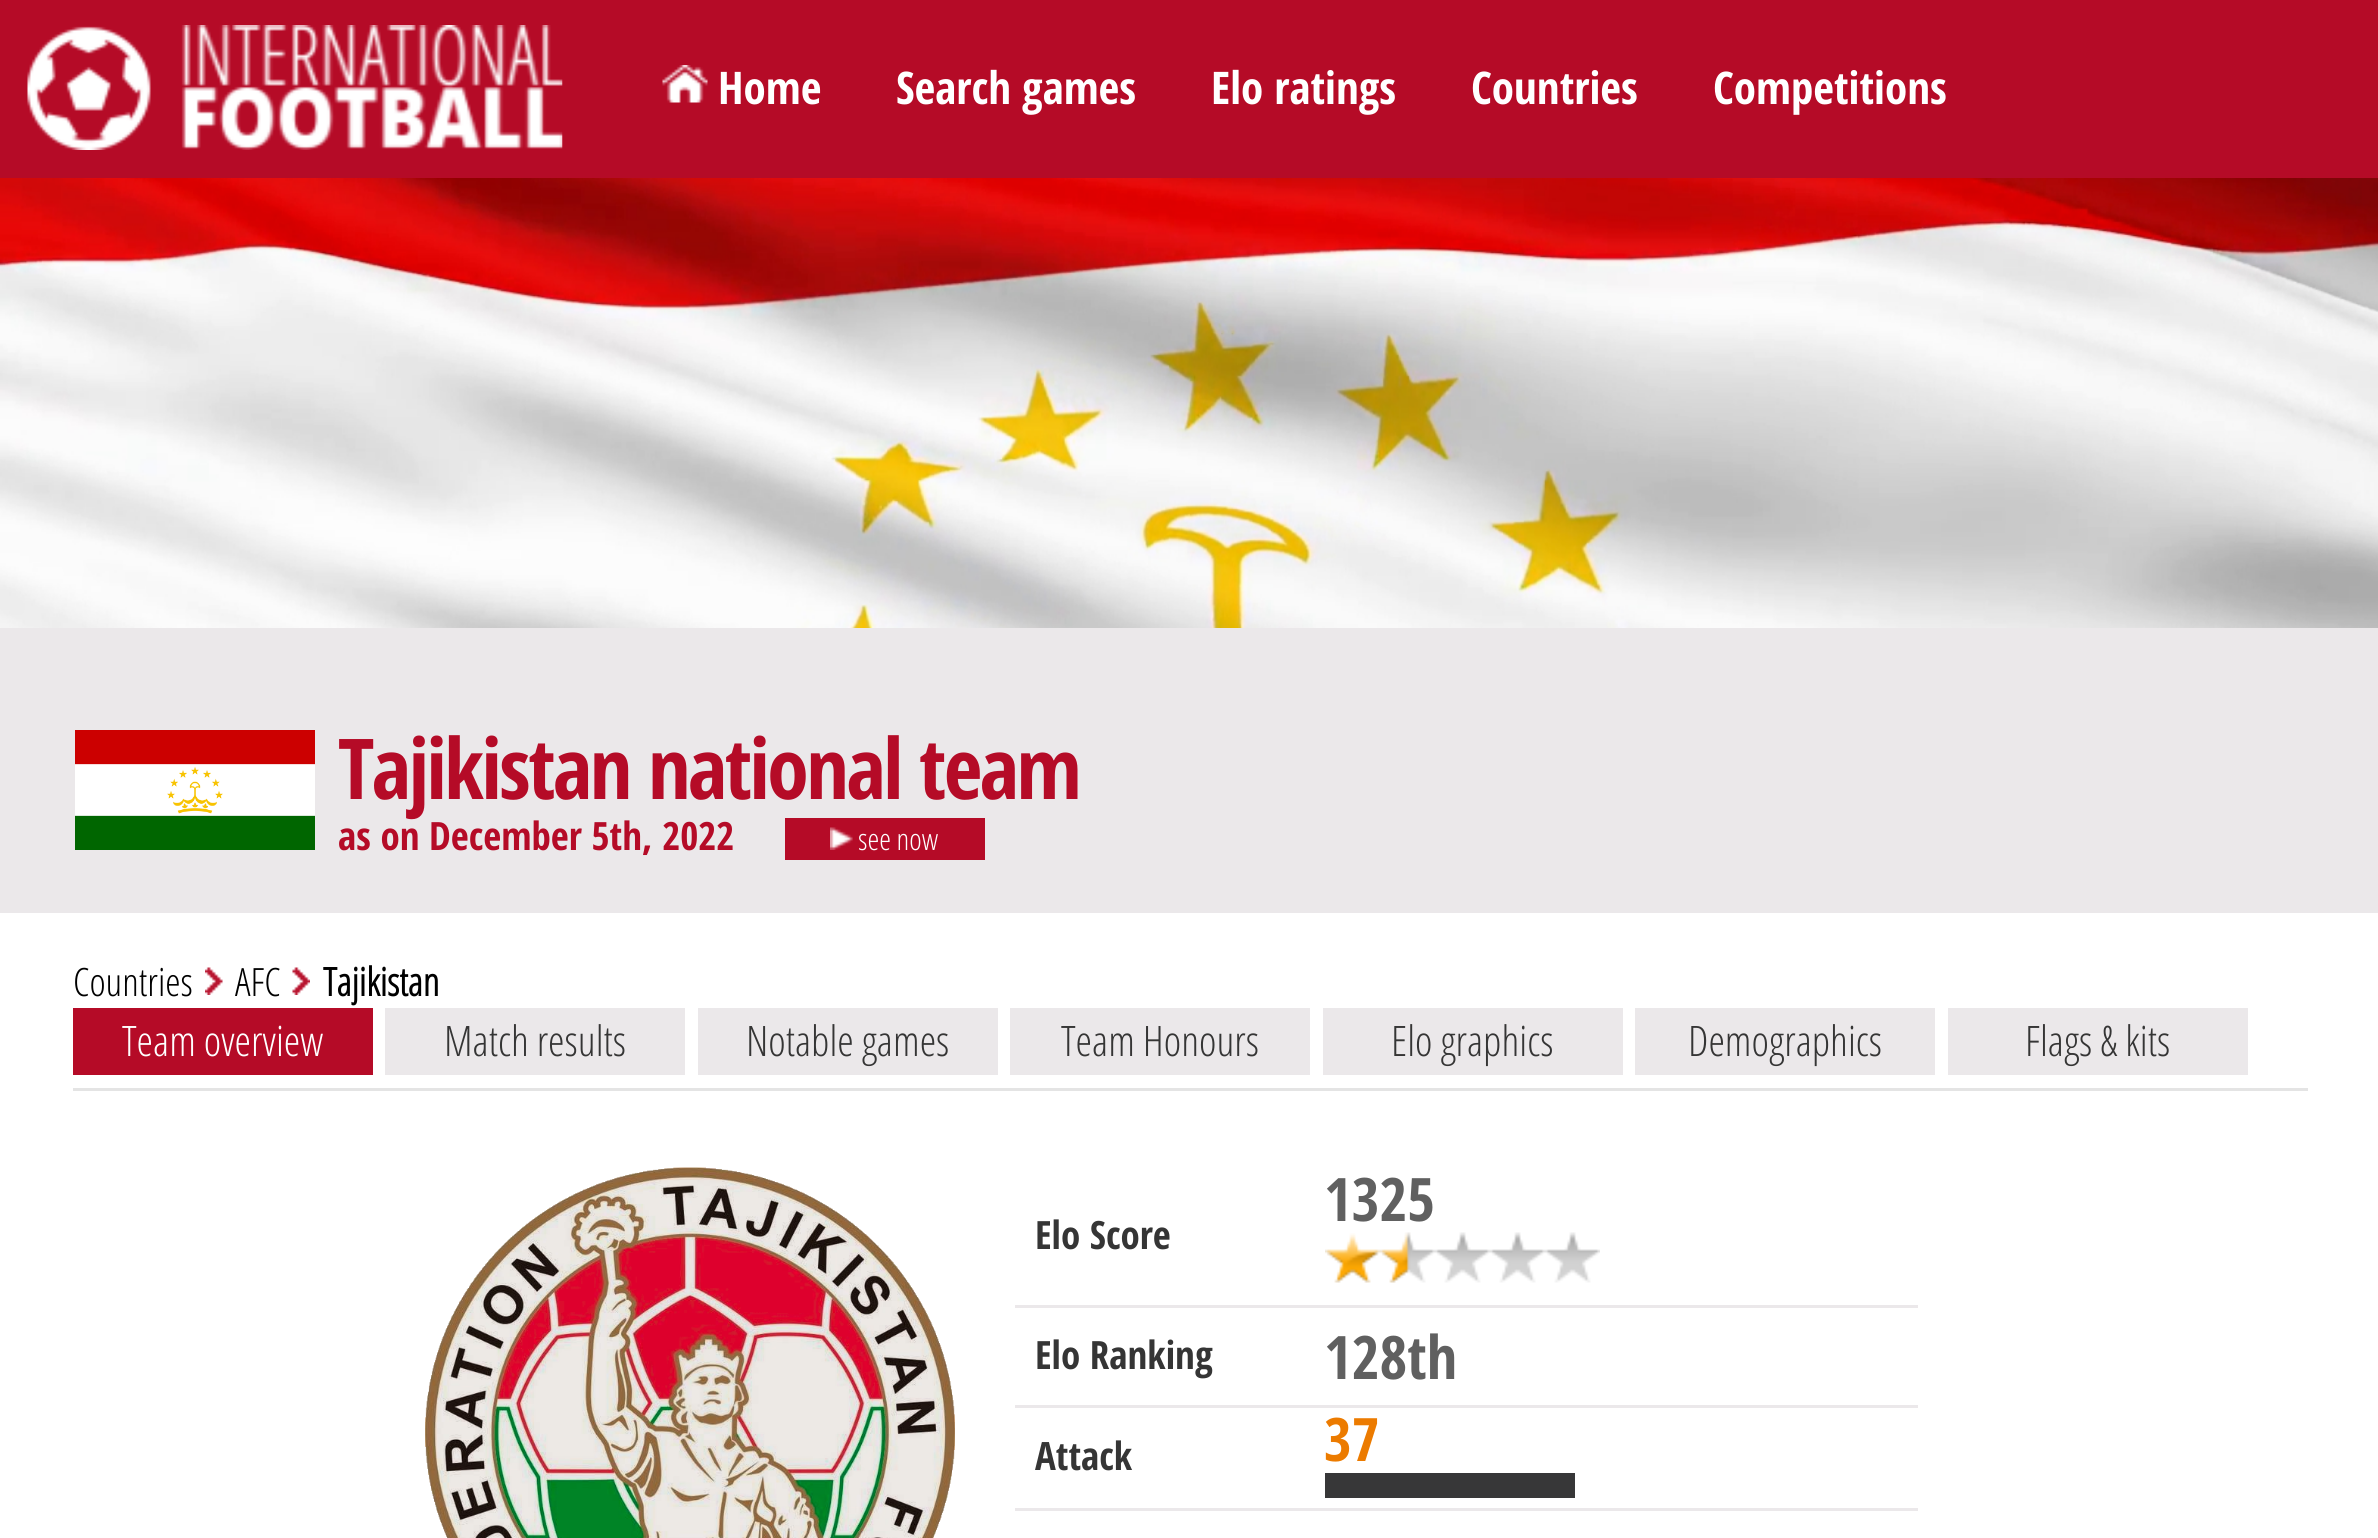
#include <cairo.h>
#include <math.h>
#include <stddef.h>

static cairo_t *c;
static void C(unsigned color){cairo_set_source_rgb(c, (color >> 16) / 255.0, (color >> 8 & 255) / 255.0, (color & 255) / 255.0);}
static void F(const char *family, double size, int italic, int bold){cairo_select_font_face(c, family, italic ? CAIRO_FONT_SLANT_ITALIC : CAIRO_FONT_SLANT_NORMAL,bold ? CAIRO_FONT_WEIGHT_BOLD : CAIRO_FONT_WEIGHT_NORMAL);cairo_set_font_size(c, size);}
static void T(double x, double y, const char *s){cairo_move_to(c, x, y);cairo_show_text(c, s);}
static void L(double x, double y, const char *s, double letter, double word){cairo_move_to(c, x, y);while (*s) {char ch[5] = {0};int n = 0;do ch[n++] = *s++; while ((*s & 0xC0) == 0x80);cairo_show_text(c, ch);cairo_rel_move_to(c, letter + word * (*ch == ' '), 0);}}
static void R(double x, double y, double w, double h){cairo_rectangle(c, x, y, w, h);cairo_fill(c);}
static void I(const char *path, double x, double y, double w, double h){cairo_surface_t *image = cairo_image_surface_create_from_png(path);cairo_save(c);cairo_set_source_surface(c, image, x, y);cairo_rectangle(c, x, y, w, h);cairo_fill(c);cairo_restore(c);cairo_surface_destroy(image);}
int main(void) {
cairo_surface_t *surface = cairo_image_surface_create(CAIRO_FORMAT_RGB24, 2378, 1538);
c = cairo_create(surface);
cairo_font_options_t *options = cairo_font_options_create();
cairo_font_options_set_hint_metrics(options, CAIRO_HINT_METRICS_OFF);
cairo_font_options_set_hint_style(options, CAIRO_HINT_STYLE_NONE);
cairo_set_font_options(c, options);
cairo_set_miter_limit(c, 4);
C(0xffffff);
cairo_paint(c);
C(0xb50b27);
R(0,0,2378,178);
I("1.png",27,25,536,125);
I("2.png",662,65,46,38);
F("Open Sans Condensed",45,0,1);
C(0xffffff);
T(718,104,"Home");
T(896,104,"Search games");
T(1211,104,"Elo ratings");
T(1471,104,"Countries");
T(1713,104,"Competitions");
C(0xebe8ea);
R(0,628,2378,285);
I("3.png",75,730,240,120);
F("Open Sans Condensed",84,0,1);
C(0xb50b27);
L(338,799,"Tajikistan national team",-2.5,0);
F("Open Sans Condensed",39,0,1);
T(338,850,"as on December 5th, 2022");
R(785,818,200,42);
I("4.png",830,827,23,23);
F("Open Sans Light",30,0,0);
C(0xffffff);
T(858,850,"see now");
F("Open Sans Light",39,0,0);
C(0x000000);
T(73,996,"Countries");
I("5.png",205,967,18,28);
T(235,996,"AFC");
I("6.png",292,967,18,28);
F("Open Sans",39,0,1);
T(323,996,"Tajikistan");
C(0xb50b27);
R(73,1008,300,67);
F("Open Sans Light",42,0,0);
C(0xffffff);
T(122,1056,"Team overview");
C(0xebe8ea);
R(385,1008,300,67);
C(0x353535);
T(444,1056,"Match results");
C(0xebe8ea);
R(698,1008,300,67);
C(0x353535);
T(746,1056,"Notable games");
C(0xebe8ea);
R(1010,1008,300,67);
C(0x353535);
T(1061,1056,"Team Honours");
C(0xebe8ea);
R(1323,1008,300,67);
C(0x353535);
T(1391,1056,"Elo graphics");
C(0xebe8ea);
R(1635,1008,300,67);
C(0x353535);
T(1688,1056,"Demographics");
C(0xebe8ea);
R(1948,1008,300,67);
C(0x353535);
T(2025,1056,"Flags & kits");
C(0xe4e4e4);
R(73,1088,2235,3);
I("7.png",425,1167,530,371);
C(0xebe8ea);
R(1015,1305,903,3);
F("Open Sans Condensed",60,0,1);
C(0x606060);
T(1324,1221,"1325");
I("8.png",1325,1233,55,50);
I("9.png",1380,1232,55,51);
I("10.png",1435,1232,55,51);
I("10.png",1490,1232,55,51);
I("11.png",1545,1232,55,51);
F("Open Sans Condensed",39,0,1);
C(0x353535);
T(1035,1249,"Elo Score");
T(1035,1369,"Elo Ranking");
C(0xebe8ea);
R(1015,1405,903,3);
F("Open Sans Condensed",60,0,1);
C(0x606060);
T(1324,1379,"128th");
F("Open Sans Condensed",39,0,1);
C(0x353535);
T(1035,1470,"Attack");
C(0xebe8ea);
R(1015,1508,903,3);
F("Open Sans Condensed",60,0,1);
C(0xec7b00);
T(1324,1461,"37");
C(0x373738);
R(1325,1473,250,25);
I("12.png",0,178,2378,450);
cairo_surface_write_to_png(surface, "o.png");
cairo_font_options_destroy(options);
cairo_destroy(c);
cairo_surface_destroy(surface);
return 0;
}
